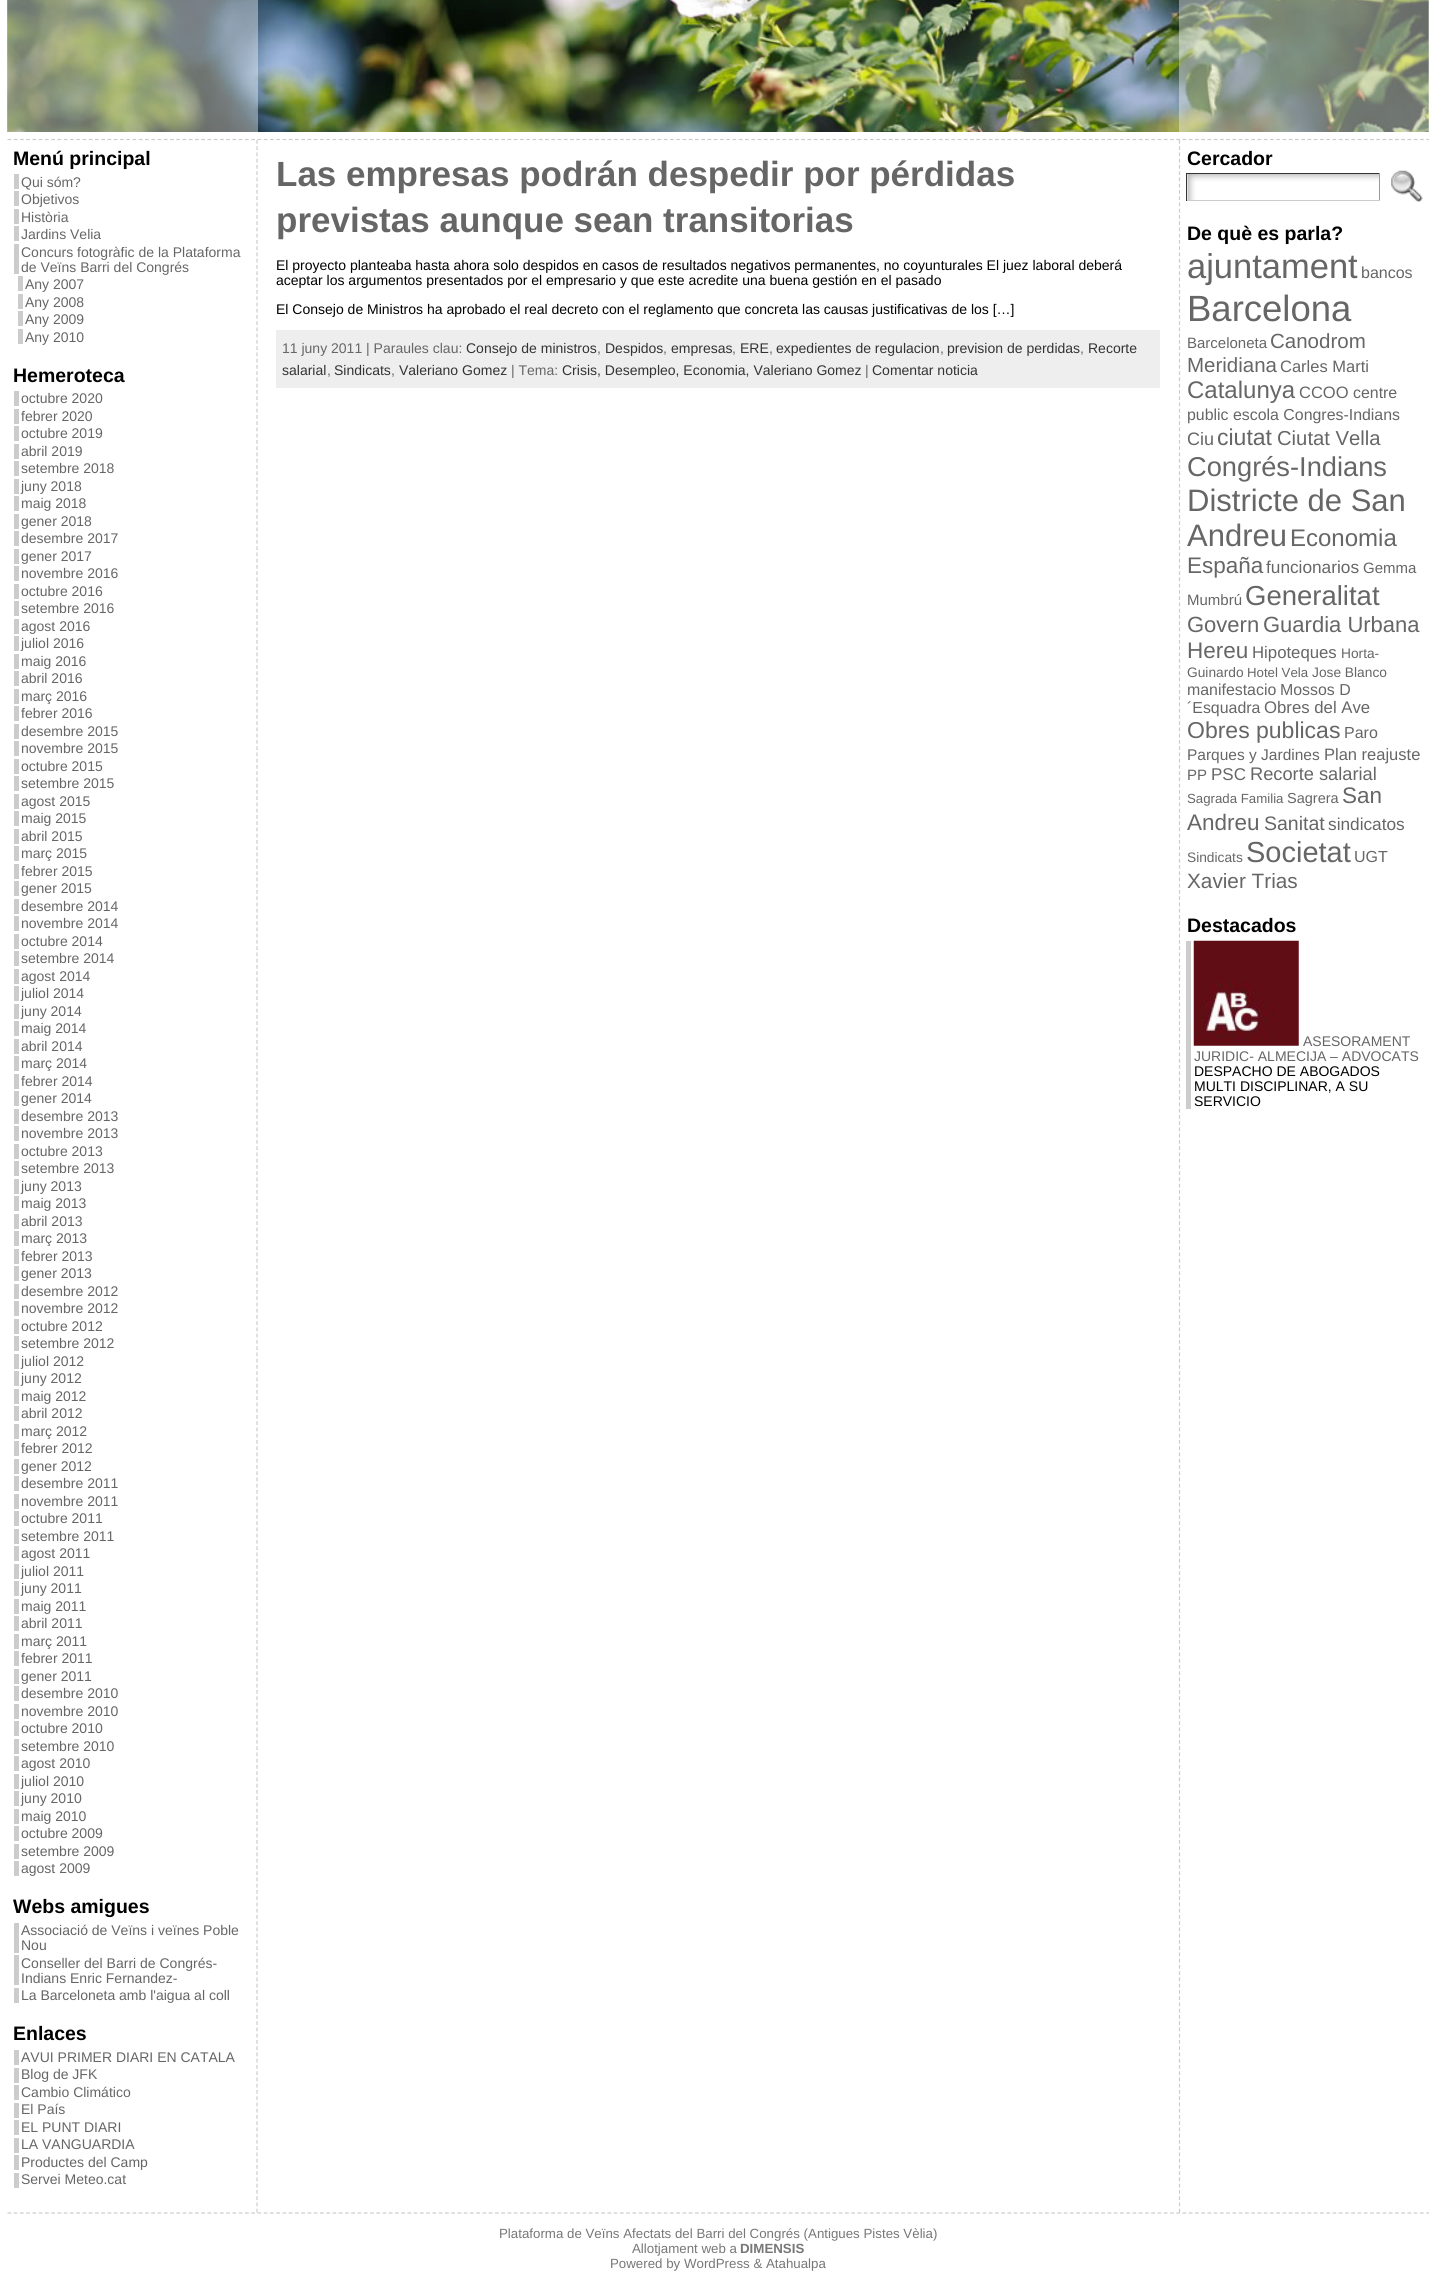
#include <cairo.h>
#include <math.h>
#include <stddef.h>

static cairo_t *c;
static void C(unsigned color){cairo_set_source_rgb(c, (color >> 16) / 255.0, (color >> 8 & 255) / 255.0, (color & 255) / 255.0);}
static void F(const char *family, double size, int italic, int bold){cairo_select_font_face(c, family, italic ? CAIRO_FONT_SLANT_ITALIC : CAIRO_FONT_SLANT_NORMAL,bold ? CAIRO_FONT_WEIGHT_BOLD : CAIRO_FONT_WEIGHT_NORMAL);cairo_set_font_size(c, size);}
static void T(double x, double y, const char *s){cairo_move_to(c, x, y);cairo_show_text(c, s);}
static void R(double x, double y, double w, double h){cairo_rectangle(c, x, y, w, h);cairo_fill(c);}
static void I(const char *path, double x, double y, double w, double h){cairo_surface_t *image = cairo_image_surface_create_from_png(path);cairo_save(c);cairo_set_source_surface(c, image, x, y);cairo_rectangle(c, x, y, w, h);cairo_fill(c);cairo_restore(c);cairo_surface_destroy(image);}
int main(void) {
cairo_surface_t *surface = cairo_image_surface_create(CAIRO_FORMAT_RGB24, 1436, 2283);
c = cairo_create(surface);
cairo_font_options_t *options = cairo_font_options_create();
cairo_font_options_set_hint_metrics(options, CAIRO_HINT_METRICS_OFF);
cairo_font_options_set_hint_style(options, CAIRO_HINT_STYLE_NONE);
cairo_set_font_options(c, options);
cairo_set_miter_limit(c, 4);
C(0xffffff);
cairo_paint(c);
I("1.png",7,0,1422,132);
cairo_set_source_rgba(c,1,1,1,0.4);
R(8,0,250,132);
R(1179,0,250,132);
cairo_new_path(c);
cairo_move_to(c,257,140);
cairo_line_to(c,257,2212.5);
C(0xcccccc);
cairo_set_line_width(c,1.2);
cairo_set_dash(c,(double[]){3.75,2.5},2,0);
cairo_stroke(c);
cairo_new_path(c);
cairo_move_to(c,1179.5,140);
cairo_line_to(c,1179.5,2212.5);
cairo_stroke(c);
cairo_new_path(c);
cairo_move_to(c,7.5,139.5);
cairo_line_to(c,1429,139.5);
cairo_stroke(c);
F("Liberation Sans",19.5,0,1);
C(0x000000);
T(13,165,"Menú principal");
C(0xcccccc);
R(14,174,5,15);
F("Liberation Sans",14,0,0);
C(0x666666);
T(21,187,"Qui sóm?");
C(0xcccccc);
R(14,191,5,15);
C(0x666666);
T(21,204,"Objetivos");
C(0xcccccc);
R(14,209,5,15);
C(0x666666);
T(21,222,"Història");
C(0xcccccc);
R(14,226,5,15);
C(0x666666);
T(21,239,"Jardins Velia");
C(0xcccccc);
R(14,244,5,30);
C(0x666666);
T(21,257,"Concurs fotogràfic de la Plataforma");
T(21,272,"de Veïns Barri del Congrés");
C(0xcccccc);
R(18,276,5,15);
C(0x666666);
T(25,289,"Any 2007");
C(0xcccccc);
R(18,294,5,15);
C(0x666666);
T(25,307,"Any 2008");
C(0xcccccc);
R(18,311,5,15);
C(0x666666);
T(25,324,"Any 2009");
C(0xcccccc);
R(18,329,5,15);
C(0x666666);
T(25,342,"Any 2010");
F("Liberation Sans",19.5,0,1);
C(0x000000);
T(13,382,"Hemeroteca");
C(0xcccccc);
R(14,391,5,15);
F("Liberation Sans",14,0,0);
C(0x666666);
T(21,403,"octubre 2020");
C(0xcccccc);
R(14,409,5,15);
C(0x666666);
T(21,421,"febrer 2020");
C(0xcccccc);
R(14,426,5,15);
C(0x666666);
T(21,438,"octubre 2019");
C(0xcccccc);
R(14,444,5,15);
C(0x666666);
T(21,456,"abril 2019");
C(0xcccccc);
R(14,461,5,15);
C(0x666666);
T(21,473,"setembre 2018");
C(0xcccccc);
R(14,479,5,15);
C(0x666666);
T(21,491,"juny 2018");
C(0xcccccc);
R(14,496,5,15);
C(0x666666);
T(21,508,"maig 2018");
C(0xcccccc);
R(14,514,5,15);
C(0x666666);
T(21,526,"gener 2018");
C(0xcccccc);
R(14,531,5,15);
C(0x666666);
T(21,543,"desembre 2017");
C(0xcccccc);
R(14,549,5,15);
C(0x666666);
T(21,561,"gener 2017");
C(0xcccccc);
R(14,566,5,15);
C(0x666666);
T(21,578,"novembre 2016");
C(0xcccccc);
R(14,584,5,15);
C(0x666666);
T(21,596,"octubre 2016");
C(0xcccccc);
R(14,601,5,15);
C(0x666666);
T(21,613,"setembre 2016");
C(0xcccccc);
R(14,619,5,15);
C(0x666666);
T(21,631,"agost 2016");
C(0xcccccc);
R(14,636,5,15);
C(0x666666);
T(21,648,"juliol 2016");
C(0xcccccc);
R(14,654,5,15);
C(0x666666);
T(21,666,"maig 2016");
C(0xcccccc);
R(14,671,5,15);
C(0x666666);
T(21,683,"abril 2016");
C(0xcccccc);
R(14,689,5,15);
C(0x666666);
T(21,701,"març 2016");
C(0xcccccc);
R(14,706,5,15);
C(0x666666);
T(21,718,"febrer 2016");
C(0xcccccc);
R(14,724,5,15);
C(0x666666);
T(21,736,"desembre 2015");
C(0xcccccc);
R(14,741,5,15);
C(0x666666);
T(21,753,"novembre 2015");
C(0xcccccc);
R(14,759,5,15);
C(0x666666);
T(21,771,"octubre 2015");
C(0xcccccc);
R(14,776,5,15);
C(0x666666);
T(21,788,"setembre 2015");
C(0xcccccc);
R(14,794,5,15);
C(0x666666);
T(21,806,"agost 2015");
C(0xcccccc);
R(14,811,5,15);
C(0x666666);
T(21,823,"maig 2015");
C(0xcccccc);
R(14,829,5,15);
C(0x666666);
T(21,841,"abril 2015");
C(0xcccccc);
R(14,846,5,15);
C(0x666666);
T(21,858,"març 2015");
C(0xcccccc);
R(14,864,5,15);
C(0x666666);
T(21,876,"febrer 2015");
C(0xcccccc);
R(14,881,5,15);
C(0x666666);
T(21,893,"gener 2015");
C(0xcccccc);
R(14,899,5,15);
C(0x666666);
T(21,911,"desembre 2014");
C(0xcccccc);
R(14,916,5,15);
C(0x666666);
T(21,928,"novembre 2014");
C(0xcccccc);
R(14,934,5,15);
C(0x666666);
T(21,946,"octubre 2014");
C(0xcccccc);
R(14,951,5,15);
C(0x666666);
T(21,963,"setembre 2014");
C(0xcccccc);
R(14,969,5,15);
C(0x666666);
T(21,981,"agost 2014");
C(0xcccccc);
R(14,986,5,15);
C(0x666666);
T(21,998,"juliol 2014");
C(0xcccccc);
R(14,1004,5,15);
C(0x666666);
T(21,1016,"juny 2014");
C(0xcccccc);
R(14,1021,5,15);
C(0x666666);
T(21,1033,"maig 2014");
C(0xcccccc);
R(14,1039,5,15);
C(0x666666);
T(21,1051,"abril 2014");
C(0xcccccc);
R(14,1056,5,15);
C(0x666666);
T(21,1068,"març 2014");
C(0xcccccc);
R(14,1074,5,15);
C(0x666666);
T(21,1086,"febrer 2014");
C(0xcccccc);
R(14,1091,5,15);
C(0x666666);
T(21,1103,"gener 2014");
C(0xcccccc);
R(14,1109,5,15);
C(0x666666);
T(21,1121,"desembre 2013");
C(0xcccccc);
R(14,1126,5,15);
C(0x666666);
T(21,1138,"novembre 2013");
C(0xcccccc);
R(14,1144,5,15);
C(0x666666);
T(21,1156,"octubre 2013");
C(0xcccccc);
R(14,1161,5,15);
C(0x666666);
T(21,1173,"setembre 2013");
C(0xcccccc);
R(14,1179,5,15);
C(0x666666);
T(21,1191,"juny 2013");
C(0xcccccc);
R(14,1196,5,15);
C(0x666666);
T(21,1208,"maig 2013");
C(0xcccccc);
R(14,1214,5,15);
C(0x666666);
T(21,1226,"abril 2013");
C(0xcccccc);
R(14,1231,5,15);
C(0x666666);
T(21,1243,"març 2013");
C(0xcccccc);
R(14,1249,5,15);
C(0x666666);
T(21,1261,"febrer 2013");
C(0xcccccc);
R(14,1266,5,15);
C(0x666666);
T(21,1278,"gener 2013");
C(0xcccccc);
R(14,1284,5,15);
C(0x666666);
T(21,1296,"desembre 2012");
C(0xcccccc);
R(14,1301,5,15);
C(0x666666);
T(21,1313,"novembre 2012");
C(0xcccccc);
R(14,1319,5,15);
C(0x666666);
T(21,1331,"octubre 2012");
C(0xcccccc);
R(14,1336,5,15);
C(0x666666);
T(21,1348,"setembre 2012");
C(0xcccccc);
R(14,1354,5,15);
C(0x666666);
T(21,1366,"juliol 2012");
C(0xcccccc);
R(14,1371,5,15);
C(0x666666);
T(21,1383,"juny 2012");
C(0xcccccc);
R(14,1389,5,15);
C(0x666666);
T(21,1401,"maig 2012");
C(0xcccccc);
R(14,1406,5,15);
C(0x666666);
T(21,1418,"abril 2012");
C(0xcccccc);
R(14,1424,5,15);
C(0x666666);
T(21,1436,"març 2012");
C(0xcccccc);
R(14,1441,5,15);
C(0x666666);
T(21,1453,"febrer 2012");
C(0xcccccc);
R(14,1459,5,15);
C(0x666666);
T(21,1471,"gener 2012");
C(0xcccccc);
R(14,1476,5,15);
C(0x666666);
T(21,1488,"desembre 2011");
C(0xcccccc);
R(14,1494,5,15);
C(0x666666);
T(21,1506,"novembre 2011");
C(0xcccccc);
R(14,1511,5,15);
C(0x666666);
T(21,1523,"octubre 2011");
C(0xcccccc);
R(14,1529,5,15);
C(0x666666);
T(21,1541,"setembre 2011");
C(0xcccccc);
R(14,1546,5,15);
C(0x666666);
T(21,1558,"agost 2011");
C(0xcccccc);
R(14,1564,5,15);
C(0x666666);
T(21,1576,"juliol 2011");
C(0xcccccc);
R(14,1581,5,15);
C(0x666666);
T(21,1593,"juny 2011");
C(0xcccccc);
R(14,1599,5,15);
C(0x666666);
T(21,1611,"maig 2011");
C(0xcccccc);
R(14,1616,5,15);
C(0x666666);
T(21,1628,"abril 2011");
C(0xcccccc);
R(14,1634,5,15);
C(0x666666);
T(21,1646,"març 2011");
C(0xcccccc);
R(14,1651,5,15);
C(0x666666);
T(21,1663,"febrer 2011");
C(0xcccccc);
R(14,1669,5,15);
C(0x666666);
T(21,1681,"gener 2011");
C(0xcccccc);
R(14,1686,5,15);
C(0x666666);
T(21,1698,"desembre 2010");
C(0xcccccc);
R(14,1704,5,15);
C(0x666666);
T(21,1716,"novembre 2010");
C(0xcccccc);
R(14,1721,5,15);
C(0x666666);
T(21,1733,"octubre 2010");
C(0xcccccc);
R(14,1739,5,15);
C(0x666666);
T(21,1751,"setembre 2010");
C(0xcccccc);
R(14,1756,5,15);
C(0x666666);
T(21,1768,"agost 2010");
C(0xcccccc);
R(14,1774,5,15);
C(0x666666);
T(21,1786,"juliol 2010");
C(0xcccccc);
R(14,1791,5,15);
C(0x666666);
T(21,1803,"juny 2010");
C(0xcccccc);
R(14,1809,5,15);
C(0x666666);
T(21,1821,"maig 2010");
C(0xcccccc);
R(14,1826,5,15);
C(0x666666);
T(21,1838,"octubre 2009");
C(0xcccccc);
R(14,1844,5,15);
C(0x666666);
T(21,1856,"setembre 2009");
C(0xcccccc);
R(14,1861,5,15);
C(0x666666);
T(21,1873,"agost 2009");
F("Liberation Sans",19.5,0,1);
C(0x000000);
T(13,1913,"Webs amigues");
C(0xcccccc);
R(14,1923,5,30);
F("Liberation Sans",14,0,0);
C(0x666666);
T(21,1935,"Associació de Veïns i veïnes Poble");
T(21,1950,"Nou");
C(0xcccccc);
R(14,1955,5,30);
C(0x666666);
T(21,1968,"Conseller del Barri de Congrés-");
T(21,1983,"Indians Enric Fernandez-");
C(0xcccccc);
R(14,1988,5,15);
C(0x666666);
T(21,2000,"La Barceloneta amb l'aigua al coll");
F("Liberation Sans",19.5,0,1);
C(0x000000);
T(13,2040,"Enlaces");
C(0xcccccc);
R(14,2050,5,15);
F("Liberation Sans",14,0,0);
C(0x666666);
T(21,2062,"AVUI PRIMER DIARI EN CATALA");
C(0xcccccc);
R(14,2068,5,15);
C(0x666666);
T(21,2079,"Blog de JFK");
C(0xcccccc);
R(14,2085,5,15);
C(0x666666);
T(21,2097,"Cambio Climático");
C(0xcccccc);
R(14,2103,5,15);
C(0x666666);
T(21,2114,"El País");
C(0xcccccc);
R(14,2120,5,15);
C(0x666666);
T(21,2132,"EL PUNT DIARI");
C(0xcccccc);
R(14,2138,5,15);
C(0x666666);
T(21,2149,"LA VANGUARDIA");
C(0xcccccc);
R(14,2155,5,15);
C(0x666666);
T(21,2167,"Productes del Camp");
C(0xcccccc);
R(14,2173,5,15);
C(0x666666);
T(21,2184,"Servei Meteo.cat");
F("Liberation Sans",35,0,1);
T(276,186,"Las empresas podrán despedir por pérdidas");
T(276,232,"previstas aunque sean transitorias");
F("Liberation Sans",14,0,0);
C(0x000000);
T(276,270,"El proyecto planteaba hasta ahora solo despidos en casos de resultados negativos permanentes, no coyunturales El juez laboral deberá");
T(276,285,"aceptar los argumentos presentados por el empresario y que este acredite una buena gestión en el pasado");
T(276,314,"El Consejo de Ministros ha aprobado el real decreto con el reglamento que concreta las causas justificativas de los […]");
C(0xeeeeee);
R(276,330,884,58);
C(0x666666);
T(282,353,"11 juny 2011 | Paraules clau:");
C(0x333333);
T(466,353,"Consejo de ministros");
C(0x666666);
T(597,353,",");
C(0x333333);
T(605,353,"Despidos");
C(0x666666);
T(663,353,",");
C(0x333333);
T(671,353,"empresas");
C(0x666666);
T(732,353,",");
C(0x333333);
T(740,353,"ERE");
C(0x666666);
T(769,353,",");
C(0x333333);
T(776,353,"expedientes de regulacion");
C(0x666666);
T(940,353,",");
C(0x333333);
T(947,353,"prevision de perdidas");
C(0x666666);
T(1080,353,",");
C(0x333333);
T(1088,353,"Recorte");
T(282,375,"salarial");
C(0x666666);
T(327,375,",");
C(0x333333);
T(334,375,"Sindicats");
C(0x666666);
T(391,375,",");
C(0x333333);
T(399,375,"Valeriano Gomez");
C(0x666666);
T(511,375,"| Tema:");
C(0x333333);
T(562,375,"Crisis, Desempleo, Economia, Valeriano Gomez");
C(0x666666);
T(865,375,"|");
C(0x333333);
T(872,375,"Comentar noticia");
F("Liberation Sans",19.5,0,1);
C(0x000000);
T(1187,165,"Cercador");
I("2.png",1187,174,192,26);
C(0x333333);
R(1186,173,194,1);
C(0x999999);
R(1379,173,1,28);
C(0xcccccc);
R(1186,200,194,1);
C(0x333333);
R(1186,173,1,28);
I("3.png",1391,170,32,32);
C(0x000000);
T(1187,240,"De què es parla?");
F("Liberation Sans",34.5,0,0);
C(0x666666);
T(1187,278,"ajuntament");
F("Liberation Sans",16,0,0);
T(1361,278,"bancos");
F("Liberation Sans",36.5,0,0);
T(1187,321,"Barcelona");
F("Liberation Sans",15,0,0);
T(1187,348,"Barceloneta");
F("Liberation Sans",20.5,0,0);
T(1270,348,"Canodrom");
T(1187,372,"Meridiana");
F("Liberation Sans",16.5,0,0);
T(1280,372,"Carles Marti");
F("Liberation Sans",24,0,0);
T(1187,398,"Catalunya");
F("Liberation Sans",16.5,0,0);
T(1299,398,"CCOO");
F("Liberation Sans",15.9,0,0);
T(1353,398,"centre");
T(1187,420,"public escola Congres-Indians");
F("Liberation Sans",18,0,0);
T(1187,445,"Ciu");
F("Liberation Sans",23,0,0);
T(1217,445,"ciutat");
F("Liberation Sans",20.25,0,0);
T(1277,445,"Ciutat Vella");
F("Liberation Sans",27.25,0,0);
T(1187,476,"Congrés-Indians");
F("Liberation Sans",31,0,0);
T(1187,511,"Districte de San");
T(1187,546,"Andreu");
F("Liberation Sans",24,0,0);
T(1290,546,"Economia");
F("Liberation Sans",22.5,0,0);
T(1187,573,"España");
F("Liberation Sans",17.25,0,0);
T(1266,573,"funcionarios");
F("Liberation Sans",15,0,0);
T(1363,573,"Gemma");
T(1187,605,"Mumbrú");
F("Liberation Sans",27.5,0,0);
T(1245,605,"Generalitat");
F("Liberation Sans",22,0,0);
T(1187,632,"Govern");
T(1263,632,"Guardia Urbana");
F("Liberation Sans",22.5,0,0);
T(1187,658,"Hereu");
F("Liberation Sans",16.75,0,0);
T(1252,658,"Hipoteques");
F("Liberation Sans",13.75,0,0);
T(1341,658,"Horta-");
T(1187,677,"Guinardo");
F("Liberation Sans",13.25,0,0);
T(1247,677,"Hotel Vela");
F("Liberation Sans",13.75,0,0);
T(1312,677,"Jose Blanco");
F("Liberation Sans",15.9,0,0);
T(1187,695,"manifestacio");
T(1280,695,"Mossos D");
T(1187,713,"´Esquadra");
F("Liberation Sans",16.75,0,0);
T(1264,713,"Obres del Ave");
F("Liberation Sans",23,0,0);
T(1187,738,"Obres publicas");
F("Liberation Sans",16,0,0);
T(1344,738,"Paro");
F("Liberation Sans",15.5,0,0);
T(1187,760,"Parques y Jardines");
F("Liberation Sans",16.5,0,0);
T(1324,760,"Plan reajuste");
F("Liberation Sans",15,0,0);
T(1187,780,"PP");
F("Liberation Sans",17,0,0);
T(1211,780,"PSC");
F("Liberation Sans",18.25,0,0);
T(1250,780,"Recorte salarial");
F("Liberation Sans",13.25,0,0);
T(1187,803,"Sagrada Familia");
F("Liberation Sans",14.5,0,0);
T(1287,803,"Sagrera");
F("Liberation Sans",22.5,0,0);
T(1342,803,"San");
T(1187,830,"Andreu");
F("Liberation Sans",19.5,0,0);
T(1264,830,"Sanitat");
F("Liberation Sans",17.25,0,0);
T(1328,830,"sindicatos");
F("Liberation Sans",13.75,0,0);
T(1187,862,"Sindicats");
F("Liberation Sans",29,0,0);
T(1246,862,"Societat");
F("Liberation Sans",16,0,0);
T(1354,862,"UGT");
F("Liberation Sans",20.75,0,0);
T(1187,888,"Xavier Trias");
F("Liberation Sans",19.5,0,1);
C(0x000000);
T(1187,932,"Destacados");
C(0xcccccc);
R(1186,941,5,168);
I("4.png",1193,940,106,106);
F("Liberation Sans",14,0,0);
C(0x666666);
T(1303,1046,"ASESORAMENT");
T(1194,1061,"JURIDIC- ALMECIJA – ADVOCATS");
C(0x000000);
T(1194,1076,"DESPACHO DE ABOGADOS");
T(1194,1091,"MULTI DISCIPLINAR, A SU");
T(1194,1106,"SERVICIO");
cairo_new_path(c);
cairo_move_to(c,7.5,2213);
cairo_line_to(c,1429,2213);
C(0xcccccc);
cairo_stroke(c);
F("Liberation Sans",13.3,0,0);
C(0x777777);
T(499,2238,"Plataforma de Veïns Afectats del Barri del Congrés (Antigues Pistes Vèlia)");
T(632,2253,"Allotjament web a");
F("Liberation Sans",13.3,0,1);
T(740,2253,"DIMENSIS");
F("Liberation Sans",13.3,0,0);
T(610,2268,"Powered by WordPress & Atahualpa");
cairo_surface_write_to_png(surface, "o.png");
cairo_font_options_destroy(options);
cairo_destroy(c);
cairo_surface_destroy(surface);
return 0;
}
